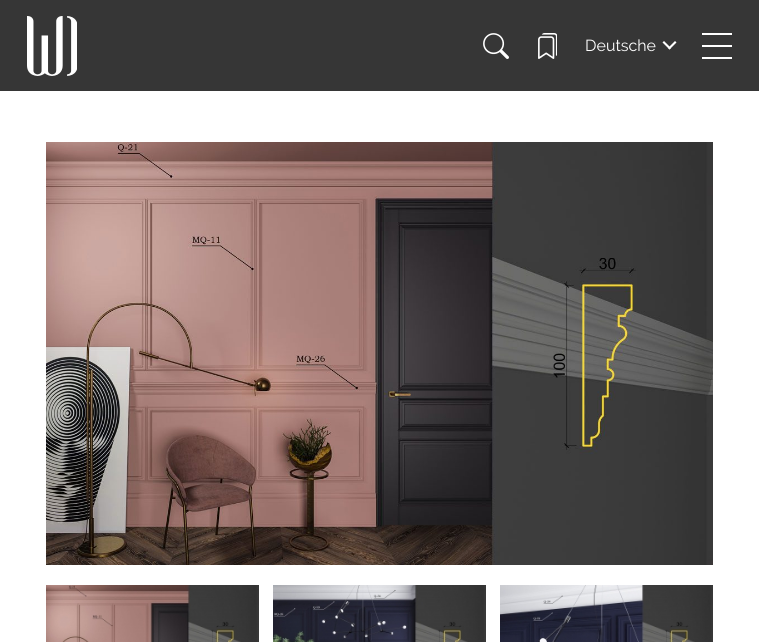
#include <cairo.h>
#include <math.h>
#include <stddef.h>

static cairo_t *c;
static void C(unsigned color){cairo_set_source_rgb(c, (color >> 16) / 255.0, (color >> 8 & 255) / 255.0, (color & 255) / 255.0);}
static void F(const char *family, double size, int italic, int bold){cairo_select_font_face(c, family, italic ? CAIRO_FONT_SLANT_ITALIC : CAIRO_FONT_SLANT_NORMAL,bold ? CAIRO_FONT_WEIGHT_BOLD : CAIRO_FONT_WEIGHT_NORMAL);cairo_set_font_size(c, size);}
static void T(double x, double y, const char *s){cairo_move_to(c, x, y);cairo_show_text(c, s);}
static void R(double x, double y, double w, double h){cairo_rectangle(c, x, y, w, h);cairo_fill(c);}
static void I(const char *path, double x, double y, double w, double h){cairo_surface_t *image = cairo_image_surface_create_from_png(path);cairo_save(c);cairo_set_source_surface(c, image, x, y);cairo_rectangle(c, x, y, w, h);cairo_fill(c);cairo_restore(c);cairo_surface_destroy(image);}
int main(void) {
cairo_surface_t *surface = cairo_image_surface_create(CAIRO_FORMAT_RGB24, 759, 642);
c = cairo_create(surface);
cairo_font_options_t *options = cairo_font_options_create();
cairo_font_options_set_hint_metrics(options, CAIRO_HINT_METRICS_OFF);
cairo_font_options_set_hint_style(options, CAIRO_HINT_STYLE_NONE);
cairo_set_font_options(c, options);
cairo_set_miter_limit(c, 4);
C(0xffffff);
cairo_paint(c);
C(0x363636);
R(0,0,759,91);
I("1.png",27,16,50,60);
I("2.png",483,33,26,26);
I("3.png",538,33,19,26);
F("Raleway",16,0,0);
C(0xffffff);
T(585,51,"Deutsche");
cairo_new_path(c);
cairo_move_to(c,675,41);
cairo_line_to(c,676.5,42.5);
cairo_line_to(c,669.5,49.5);
cairo_line_to(c,668,48);
cairo_close_path(c);
cairo_fill(c);
cairo_new_path(c);
cairo_move_to(c,664,41);
cairo_line_to(c,671,48);
cairo_line_to(c,669.5,49.5);
cairo_line_to(c,662.5,42.5);
cairo_close_path(c);
cairo_fill(c);
R(702,33,30,2);
R(702,45,30,2);
R(702,57,30,2);
I("4.png",46,142,667,423);
I("5.png",46,585,213,57);
I("6.png",273,585,213,57);
I("7.png",500,585,213,57);
cairo_surface_write_to_png(surface, "o.png");
cairo_font_options_destroy(options);
cairo_destroy(c);
cairo_surface_destroy(surface);
return 0;
}
